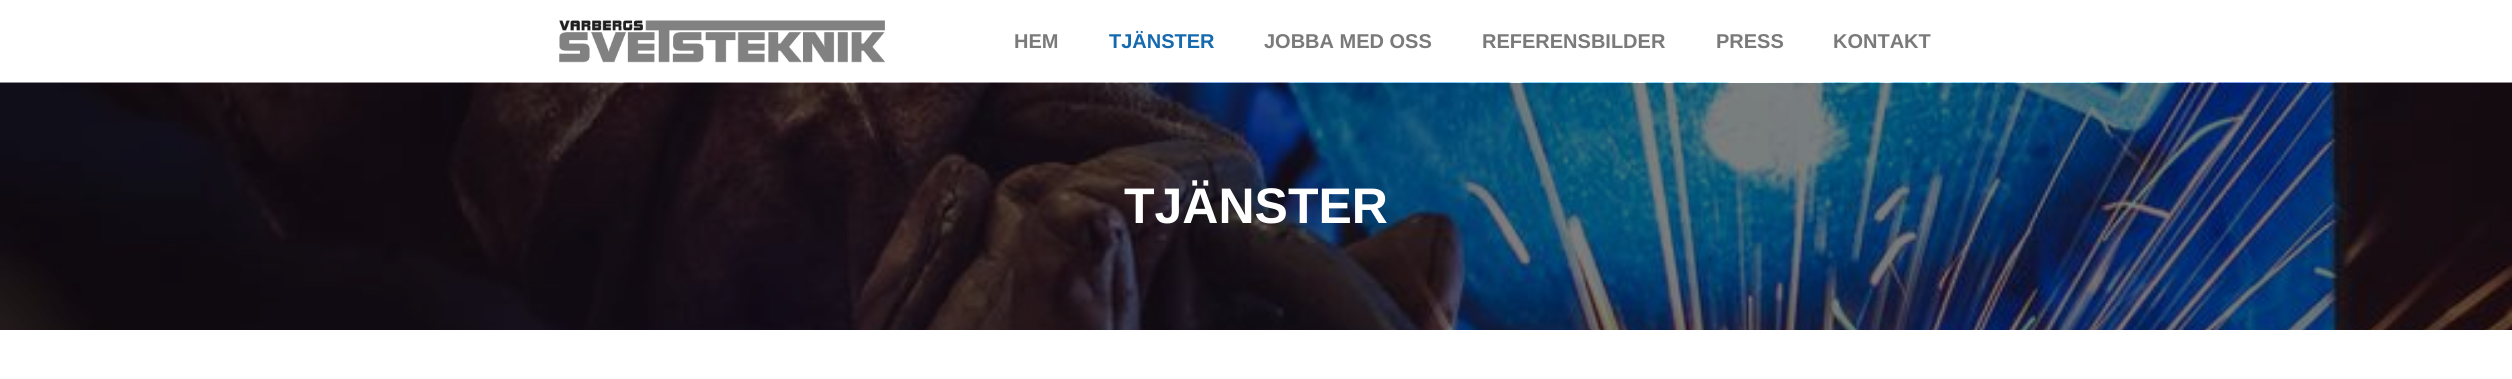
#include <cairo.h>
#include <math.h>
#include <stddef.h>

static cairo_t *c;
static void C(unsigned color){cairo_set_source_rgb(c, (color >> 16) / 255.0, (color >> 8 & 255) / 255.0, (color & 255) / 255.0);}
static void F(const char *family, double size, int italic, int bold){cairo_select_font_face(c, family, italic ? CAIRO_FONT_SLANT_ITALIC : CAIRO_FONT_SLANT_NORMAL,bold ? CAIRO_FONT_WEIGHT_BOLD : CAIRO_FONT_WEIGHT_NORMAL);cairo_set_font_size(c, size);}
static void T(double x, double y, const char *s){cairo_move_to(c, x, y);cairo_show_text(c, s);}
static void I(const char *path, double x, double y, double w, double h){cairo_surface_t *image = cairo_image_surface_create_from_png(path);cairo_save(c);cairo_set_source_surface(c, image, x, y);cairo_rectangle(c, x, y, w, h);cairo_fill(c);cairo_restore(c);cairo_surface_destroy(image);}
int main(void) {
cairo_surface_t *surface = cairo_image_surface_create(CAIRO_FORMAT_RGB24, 2512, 379);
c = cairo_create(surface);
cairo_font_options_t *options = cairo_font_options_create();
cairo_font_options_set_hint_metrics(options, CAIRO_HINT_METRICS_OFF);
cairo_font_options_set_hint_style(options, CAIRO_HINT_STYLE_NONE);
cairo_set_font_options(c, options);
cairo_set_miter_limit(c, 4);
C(0xffffff);
cairo_paint(c);
I("1.png",559,20,327,43);
F("Liberation Sans",20,0,1);
C(0x7a7a7a);
T(1014,48,"HEM");
C(0x1569ae);
T(1109,48,"TJÄNSTER");
C(0x7a7a7a);
T(1264,48,"JOBBA MED OSS");
T(1482,48,"REFERENSBILDER");
T(1716,48,"PRESS");
T(1833,48,"KONTAKT");
I("2.png",0,82,2512,248);
F("Liberation Sans",50,0,1);
C(0xffffff);
T(1124,223,"TJÄNSTER");
cairo_surface_write_to_png(surface, "o.png");
cairo_font_options_destroy(options);
cairo_destroy(c);
cairo_surface_destroy(surface);
return 0;
}
